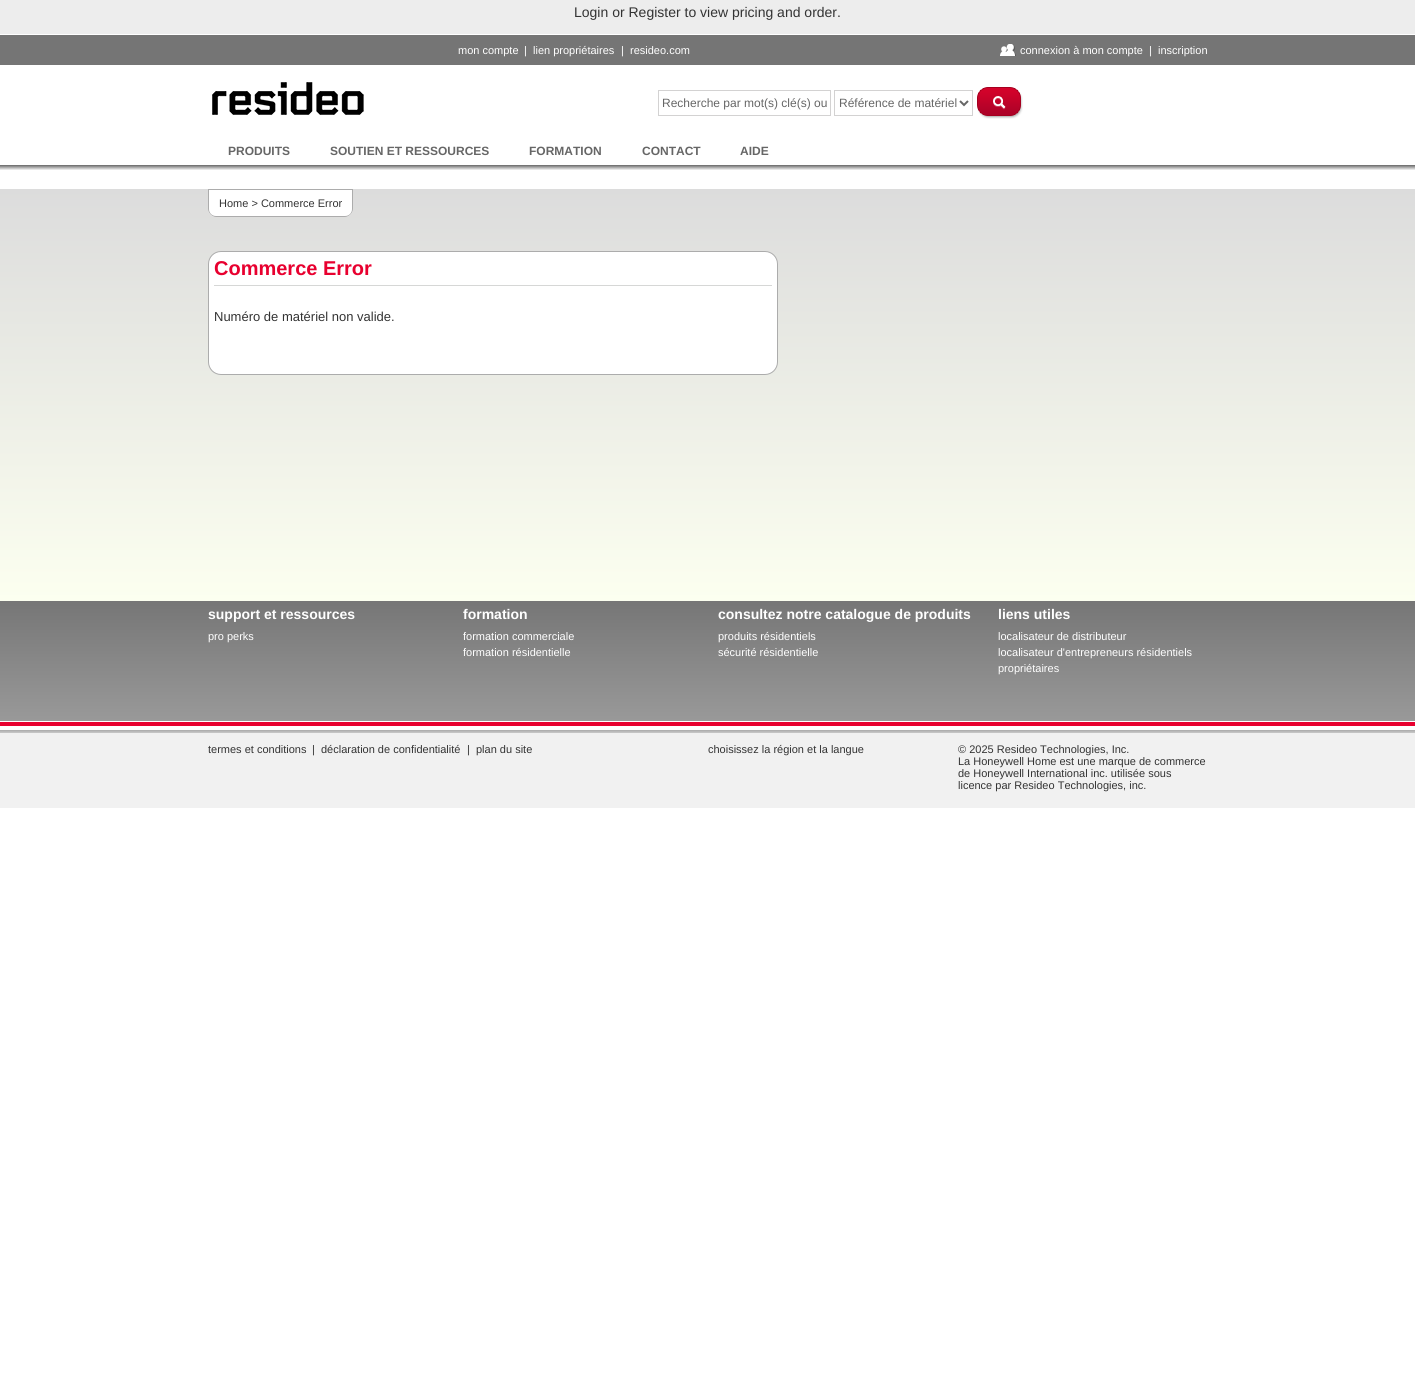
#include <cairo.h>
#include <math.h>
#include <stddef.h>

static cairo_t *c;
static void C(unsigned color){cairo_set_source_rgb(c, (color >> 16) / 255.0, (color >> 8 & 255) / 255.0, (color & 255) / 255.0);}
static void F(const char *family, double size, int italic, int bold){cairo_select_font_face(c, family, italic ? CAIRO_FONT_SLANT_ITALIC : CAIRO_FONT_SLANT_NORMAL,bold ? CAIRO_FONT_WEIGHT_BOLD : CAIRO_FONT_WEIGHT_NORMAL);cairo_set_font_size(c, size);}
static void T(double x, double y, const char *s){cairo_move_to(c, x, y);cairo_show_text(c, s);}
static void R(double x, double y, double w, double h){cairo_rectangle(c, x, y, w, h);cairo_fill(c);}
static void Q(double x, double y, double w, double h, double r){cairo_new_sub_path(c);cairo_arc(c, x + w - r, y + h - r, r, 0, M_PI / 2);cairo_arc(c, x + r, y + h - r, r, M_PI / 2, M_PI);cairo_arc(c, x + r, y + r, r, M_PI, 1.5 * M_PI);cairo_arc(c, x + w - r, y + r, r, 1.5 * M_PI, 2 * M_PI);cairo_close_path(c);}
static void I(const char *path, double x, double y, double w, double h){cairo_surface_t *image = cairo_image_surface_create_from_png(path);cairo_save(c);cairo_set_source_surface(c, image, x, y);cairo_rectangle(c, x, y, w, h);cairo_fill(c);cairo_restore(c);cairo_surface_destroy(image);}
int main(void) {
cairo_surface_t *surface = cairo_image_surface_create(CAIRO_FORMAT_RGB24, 1415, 1392);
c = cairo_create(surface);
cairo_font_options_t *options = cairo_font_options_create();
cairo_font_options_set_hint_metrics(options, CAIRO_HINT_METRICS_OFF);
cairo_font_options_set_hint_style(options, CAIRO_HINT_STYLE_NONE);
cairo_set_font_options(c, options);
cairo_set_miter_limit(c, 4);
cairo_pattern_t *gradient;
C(0xffffff);
cairo_paint(c);
C(0xededed);
R(0,0,1415,34);
F("Liberation Sans",14,0,0);
C(0x333333);
T(574,17,"Login or Register to view pricing and order.");
C(0x757575);
R(0,35,1415,30);
F("Liberation Sans",11,0,0);
C(0xffffff);
T(458,54,"mon compte");
T(524,54,"|");
T(533,54,"lien propriétaires");
T(621,54,"|");
T(630,54,"resideo.com");
I("1.png",1000,44,16,12);
T(1020,54,"connexion à mon compte");
T(1149,54,"|");
T(1158,54,"inscription");
I("2.png",212,82,152,33);
cairo_rectangle(c,658.5,90.5,172,25);
C(0xd3d2d2);
cairo_set_line_width(c,1);
cairo_stroke(c);
F("Liberation Sans",12,0,0);
C(0x666666);
T(662,107,"Recherche par mot(s) clé(s) ou");
cairo_rectangle(c,834.5,90.5,138,25);
C(0xd3d2d2);
cairo_stroke(c);
cairo_new_path(c);
cairo_move_to(c,960,101);
cairo_line_to(c,964,105);
cairo_line_to(c,968,101);
C(0x666666);
cairo_set_line_width(c,2);
cairo_stroke(c);
cairo_save(c);
cairo_rectangle(c,839,95,117,16);
cairo_clip(c);
T(839,107,"Référence de matériel");
cairo_restore(c);
I("3.png",977,87,46,32);
F("Liberation Sans",12,0,1);
T(228,155,"PRODUITS");
T(330,155,"SOUTIEN ET RESSOURCES");
T(529,155,"FORMATION");
T(642,155,"CONTACT");
T(740,155,"AIDE");
gradient = cairo_pattern_create_linear(0,165,0,170);
cairo_pattern_add_color_stop_rgba(gradient,0,0.4,0.4,0.4,1);
cairo_pattern_add_color_stop_rgba(gradient,1,0.961,0.961,0.961,1);
cairo_set_source(c,gradient);
cairo_pattern_destroy(gradient);
R(0,165,1415,5);
gradient = cairo_pattern_create_linear(0,189,0,601);
cairo_pattern_add_color_stop_rgba(gradient,0,0.863,0.863,0.863,1);
cairo_pattern_add_color_stop_rgba(gradient,1,0.988,1,0.941,1);
cairo_set_source(c,gradient);
cairo_pattern_destroy(gradient);
R(0,189,1415,412);
C(0xffffff);
cairo_new_path(c);
cairo_move_to(c,208,189);
cairo_line_to(c,248,189);
cairo_line_to(c,248,217);
cairo_line_to(c,216,217);
cairo_curve_to(c,211.5,217,208,213.5,208,209);
cairo_close_path(c);
cairo_fill(c);
C(0xacacac);
cairo_set_fill_rule(c,CAIRO_FILL_RULE_EVEN_ODD);
cairo_new_path(c);
cairo_move_to(c,208,189);
cairo_line_to(c,248,189);
cairo_line_to(c,248,217);
cairo_line_to(c,216,217);
cairo_curve_to(c,212,217,208,213,208,209);
cairo_close_path(c);
cairo_move_to(c,209,190);
cairo_line_to(c,248,190);
cairo_line_to(c,248,216);
cairo_line_to(c,216,216);
cairo_curve_to(c,212,216,209,213,209,209);
cairo_close_path(c);
cairo_fill(c);
C(0xffffff);
cairo_new_path(c);
cairo_move_to(c,248,189);
cairo_line_to(c,353,189);
cairo_line_to(c,353,209);
cairo_curve_to(c,353,213.5,349.5,217,345,217);
cairo_line_to(c,248,217);
cairo_close_path(c);
cairo_fill(c);
C(0xacacac);
cairo_new_path(c);
cairo_move_to(c,248,189);
cairo_line_to(c,353,189);
cairo_line_to(c,353,209);
cairo_curve_to(c,353,213,349,217,345,217);
cairo_line_to(c,248,217);
cairo_close_path(c);
cairo_move_to(c,248,190);
cairo_line_to(c,352,190);
cairo_line_to(c,352,209);
cairo_curve_to(c,352,213,349,216,345,216);
cairo_line_to(c,248,216);
cairo_close_path(c);
cairo_fill(c);
F("Liberation Sans",11,0,0);
C(0x333333);
T(219,207,"Home > Commerce Error");
C(0xffffff);
Q(208.5,251.5,569,123,12.5);
cairo_fill_preserve(c);
C(0xacacac);
cairo_set_line_width(c,1);
cairo_stroke(c);
C(0xd6d7d6);
R(214,285,558,1);
F("Liberation Sans",20,0,1);
C(0xe8002f);
T(214,275,"Commerce Error");
F("Liberation Sans",13,0,0);
C(0x333333);
T(214,321,"Numéro de matériel non valide.");
gradient = cairo_pattern_create_linear(0,601,0,721);
cairo_pattern_add_color_stop_rgba(gradient,0,0.463,0.463,0.463,1);
cairo_pattern_add_color_stop_rgba(gradient,1,0.6,0.6,0.6,1);
cairo_set_source(c,gradient);
cairo_pattern_destroy(gradient);
R(0,601,1415,120);
F("Liberation Sans",14,0,1);
C(0xffffff);
T(208,619,"support et ressources");
F("Liberation Sans",11,0,0);
T(208,640,"pro perks");
F("Liberation Sans",14,0,1);
T(463,619,"formation");
F("Liberation Sans",11,0,0);
T(463,640,"formation commerciale");
T(463,656,"formation résidentielle");
F("Liberation Sans",14,0,1);
T(718,619,"consultez notre catalogue de produits");
F("Liberation Sans",11,0,0);
T(718,640,"produits résidentiels");
T(718,656,"sécurité résidentielle");
F("Liberation Sans",14,0,1);
T(998,619,"liens utiles");
F("Liberation Sans",11,0,0);
T(998,640,"localisateur de distributeur");
T(998,656,"localisateur d'entrepreneurs résidentiels");
T(998,672,"propriétaires");
C(0xe8002f);
R(0,722,1415,4);
gradient = cairo_pattern_create_linear(0,730,0,733);
cairo_pattern_add_color_stop_rgba(gradient,0,0.663,0.663,0.663,1);
cairo_pattern_add_color_stop_rgba(gradient,1,0.792,0.792,0.792,1);
cairo_set_source(c,gradient);
cairo_pattern_destroy(gradient);
R(0,730,1415,3);
C(0xf1f1f1);
R(0,733,1415,75);
C(0x333333);
T(208,753,"termes et conditions");
T(312,753,"|");
T(321,753,"déclaration de confidentialité");
T(467,753,"|");
T(476,753,"plan du site");
T(708,753,"choisissez la région et la langue");
T(958,753,"© 2025 Resideo Technologies, Inc.");
T(958,765,"La Honeywell Home est une marque de commerce");
T(958,777,"de Honeywell International inc. utilisée sous");
T(958,789,"licence par Resideo Technologies, inc.");
cairo_surface_write_to_png(surface, "o.png");
cairo_font_options_destroy(options);
cairo_destroy(c);
cairo_surface_destroy(surface);
return 0;
}
